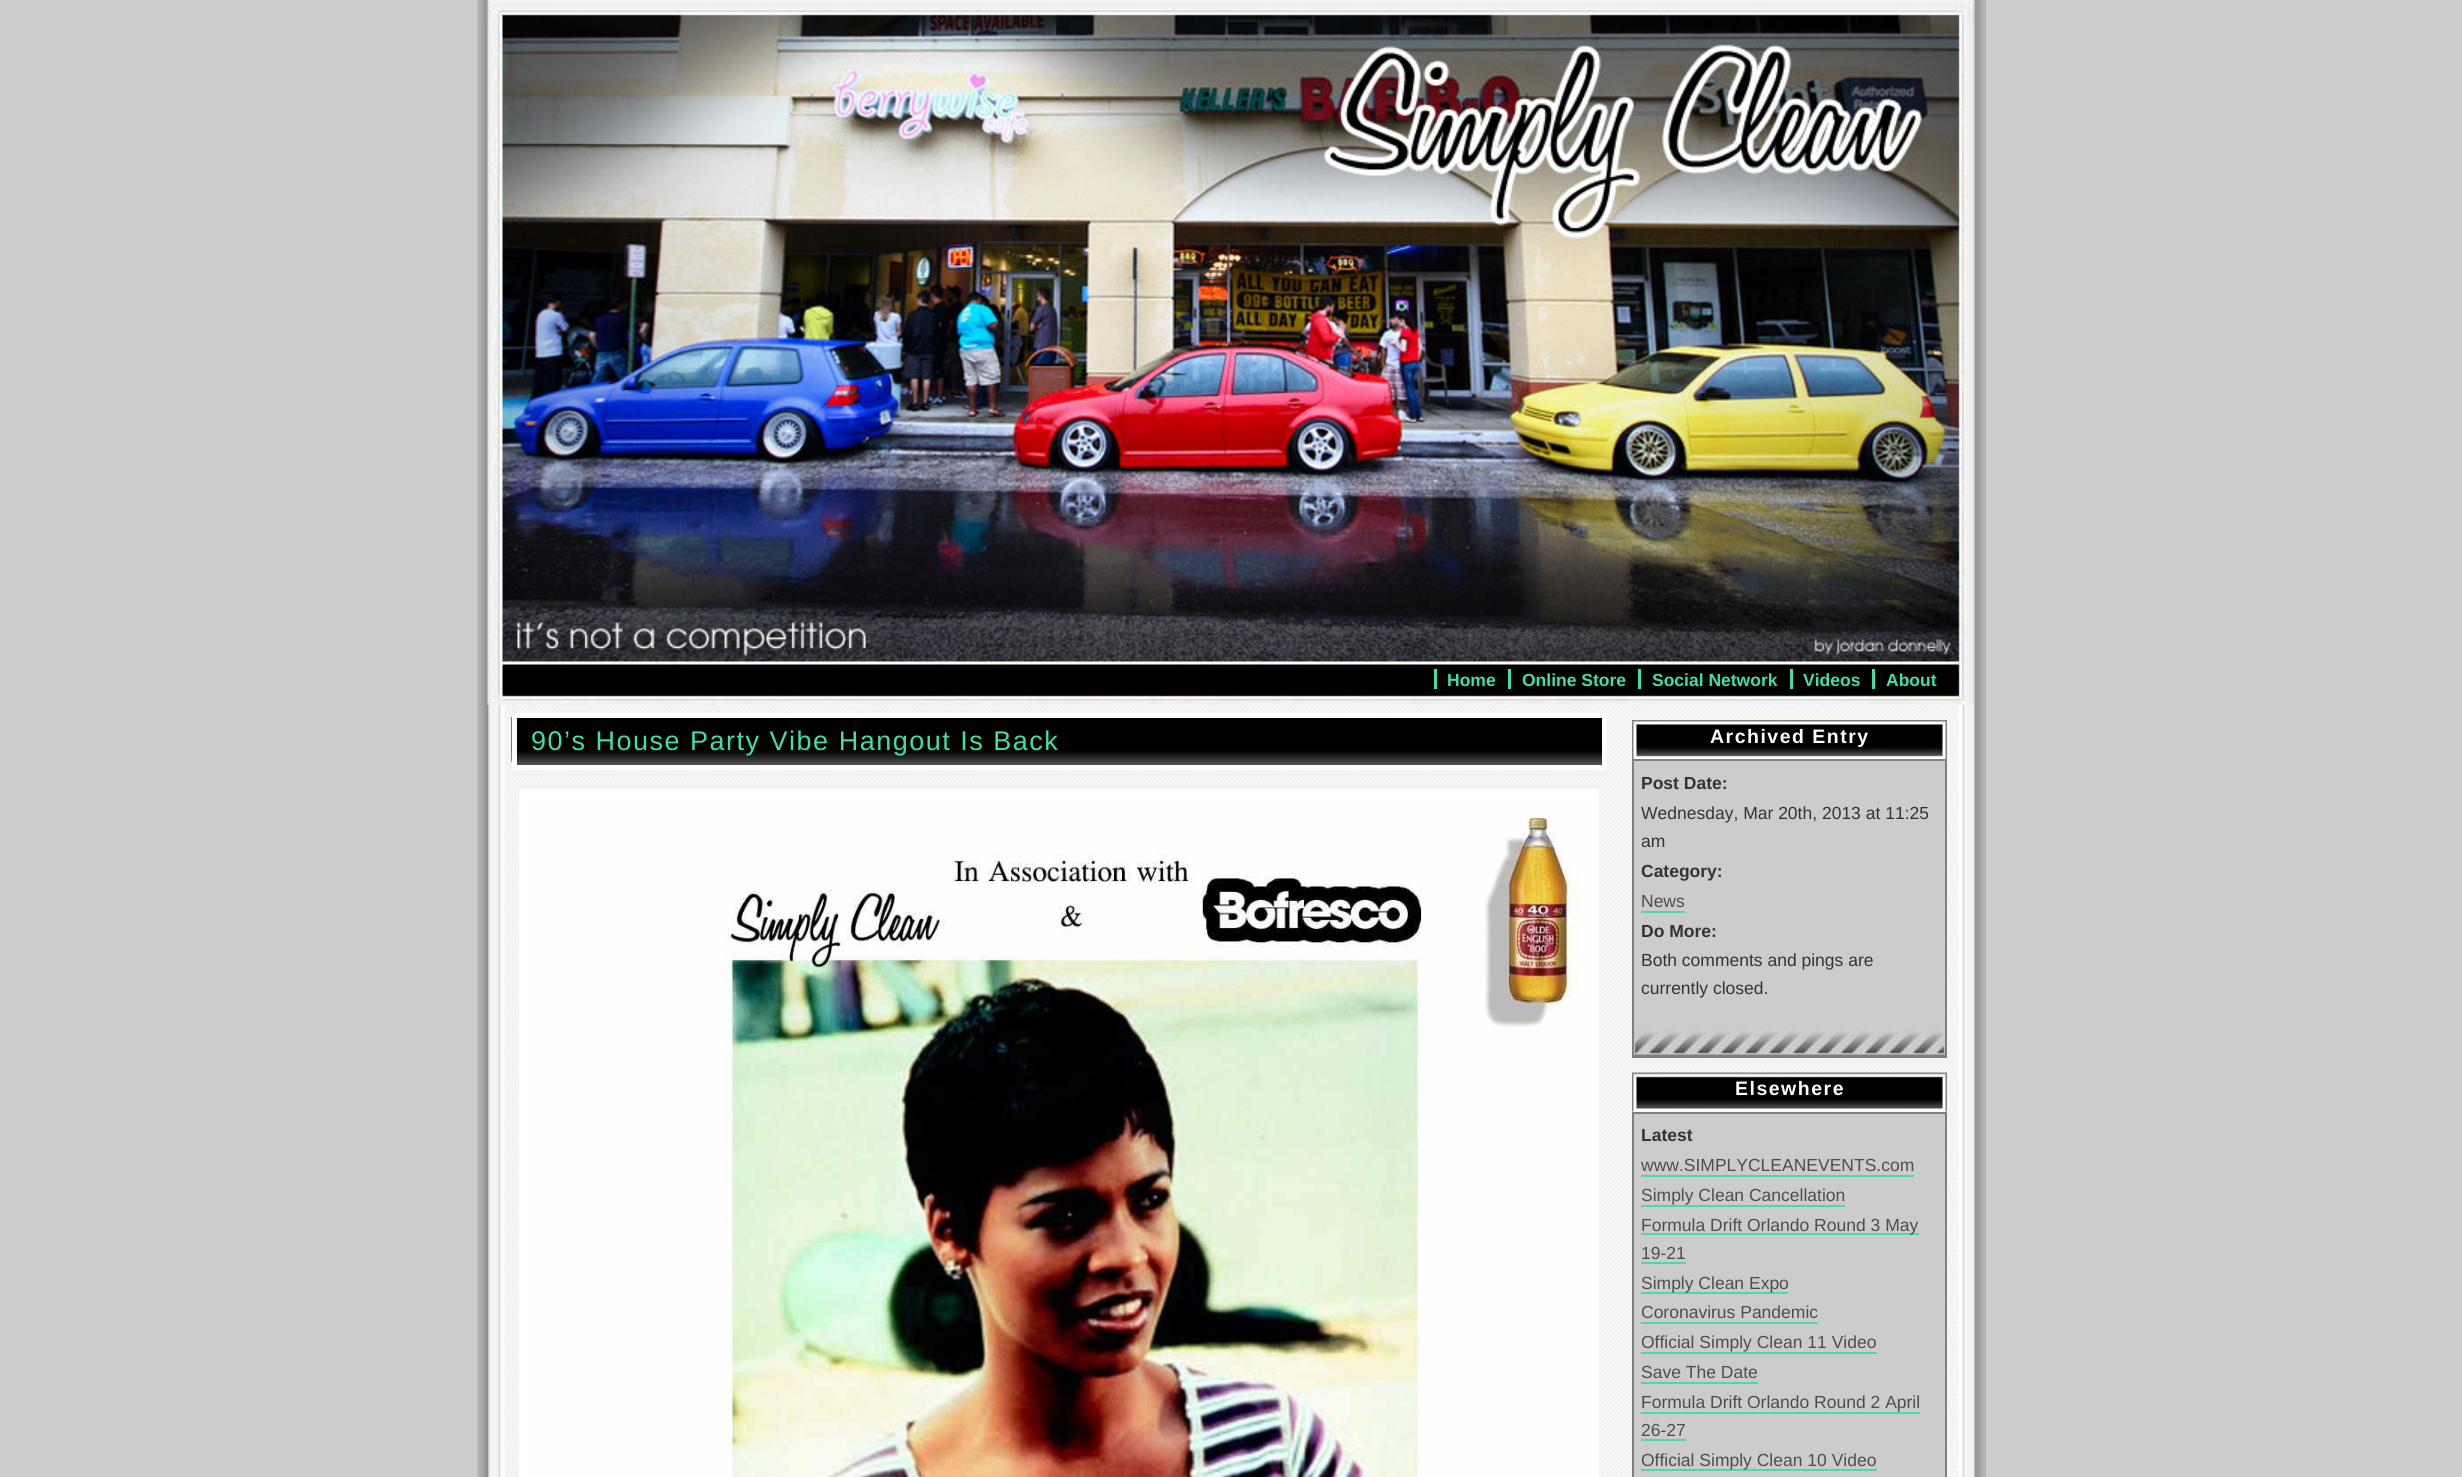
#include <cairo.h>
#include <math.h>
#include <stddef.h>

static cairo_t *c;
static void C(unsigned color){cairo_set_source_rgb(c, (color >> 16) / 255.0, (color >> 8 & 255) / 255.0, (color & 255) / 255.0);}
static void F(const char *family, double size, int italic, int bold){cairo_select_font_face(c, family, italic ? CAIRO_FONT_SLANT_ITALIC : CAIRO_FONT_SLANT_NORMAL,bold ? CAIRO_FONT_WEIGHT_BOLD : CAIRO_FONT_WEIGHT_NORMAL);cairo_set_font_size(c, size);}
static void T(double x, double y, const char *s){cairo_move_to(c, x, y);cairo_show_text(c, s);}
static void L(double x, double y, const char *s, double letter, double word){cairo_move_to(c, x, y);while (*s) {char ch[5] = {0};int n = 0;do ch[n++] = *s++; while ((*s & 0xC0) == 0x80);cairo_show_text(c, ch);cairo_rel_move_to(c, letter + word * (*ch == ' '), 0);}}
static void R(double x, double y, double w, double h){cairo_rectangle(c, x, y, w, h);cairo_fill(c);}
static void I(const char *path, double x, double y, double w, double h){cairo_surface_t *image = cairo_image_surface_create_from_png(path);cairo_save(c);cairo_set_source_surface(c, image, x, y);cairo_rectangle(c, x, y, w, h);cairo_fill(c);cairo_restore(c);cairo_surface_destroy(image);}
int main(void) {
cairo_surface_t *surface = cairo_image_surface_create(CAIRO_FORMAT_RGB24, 2462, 1477);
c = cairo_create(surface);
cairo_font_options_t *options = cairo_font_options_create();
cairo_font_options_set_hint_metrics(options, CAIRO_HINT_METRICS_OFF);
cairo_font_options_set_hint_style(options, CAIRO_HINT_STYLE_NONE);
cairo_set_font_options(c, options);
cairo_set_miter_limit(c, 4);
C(0xcccccc);
cairo_paint(c);
I("1.png",477,0,1509,1477);
I("2.png",487,0,1487,705);
F("Liberation Sans",17.5,0,1);
C(0x41deac);
T(1447,686,"Home");
R(1434,669,3,20);
T(1522,686,"Online Store");
R(1508,669,3,20);
T(1652,686,"Social Network");
R(1638,669,3,20);
T(1803,686,"Videos");
R(1790,669,3,20);
T(1886,686,"About");
R(1872,669,3,20);
I("3.png",505,705,1453,772);
C(0x4d4d4d);
R(517,762,1085,3);
I("4.png",511,717,1091,45);
cairo_rectangle(c,514.5,715.5,1090,52);
C(0xffffff);
cairo_set_line_width(c,5);
cairo_stroke(c);
F("Liberation Sans",27,0,0);
C(0x41deac);
L(531,750,"90’s House Party Vibe Hangout Is Back",1.5,0);
cairo_rectangle(c,523,793,1072,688);
C(0xffffff);
cairo_set_line_width(c,8);
cairo_stroke(c);
I("5.png",527,797,1064,680);
I("6.png",1632,720,315,39);
F("Liberation Sans",19.5,0,1);
L(1710,743,"Archived Entry",1.5,0);
C(0xcccccc);
R(1634,761,311,267);
I("7.png",1634,1027,311,29);
cairo_rectangle(c,1633,760,313,297);
C(0x7f7f7f);
cairo_set_line_width(c,2);
cairo_stroke(c);
F("Liberation Sans",17.5,0,1);
C(0x333333);
T(1641,789,"Post Date:");
F("Liberation Sans",17.5,0,0);
T(1641,819,"Wednesday, Mar 20th, 2013 at 11:25");
T(1641,847,"am");
F("Liberation Sans",17.5,0,1);
T(1641,877,"Category:");
F("Liberation Sans",17.5,0,0);
C(0x4d4d4d);
T(1641,907,"News");
C(0x41deac);
R(1641,911,44,2);
F("Liberation Sans",17.5,0,1);
C(0x333333);
T(1641,937,"Do More:");
F("Liberation Sans",17.5,0,0);
T(1641,966,"Both comments and pings are");
T(1641,994,"currently closed.");
I("8.png",1632,1072,315,40);
F("Liberation Sans",19.5,0,1);
C(0xffffff);
L(1735,1095,"Elsewhere",1.5,0);
C(0xcccccc);
cairo_rectangle(c,1633,1113,313,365);
cairo_fill_preserve(c);
C(0x7f7f7f);
cairo_stroke(c);
F("Liberation Sans",17.5,0,1);
C(0x333333);
T(1641,1141,"Latest");
F("Liberation Sans",17.5,0,0);
C(0x4d4d4d);
T(1641,1171,"www.SIMPLYCLEANEVENTS.com");
C(0x41deac);
R(1641,1175,273,2);
C(0x4d4d4d);
T(1641,1201,"Simply Clean Cancellation");
C(0x41deac);
R(1641,1205,204,2);
R(1641,1233,278,2);
C(0x4d4d4d);
T(1641,1231,"Formula Drift Orlando Round 3 May");
T(1641,1259,"19-21");
C(0x41deac);
R(1641,1262,45,2);
R(1641,1292,147,2);
C(0x4d4d4d);
T(1641,1289,"Simply Clean Expo");
T(1641,1318,"Coronavirus Pandemic");
C(0x41deac);
R(1641,1322,177,2);
C(0x4d4d4d);
T(1641,1348,"Official Simply Clean 11 Video");
C(0x41deac);
R(1641,1352,236,2);
C(0x4d4d4d);
T(1641,1378,"Save The Date");
C(0x41deac);
R(1641,1382,117,2);
C(0x4d4d4d);
T(1641,1408,"Formula Drift Orlando Round 2 April");
C(0x41deac);
R(1641,1412,279,2);
C(0x4d4d4d);
T(1641,1436,"26-27");
C(0x41deac);
R(1641,1439,45,2);
R(1641,1469,236,2);
C(0x4d4d4d);
T(1641,1466,"Official Simply Clean 10 Video");
cairo_surface_write_to_png(surface, "o.png");
cairo_font_options_destroy(options);
cairo_destroy(c);
cairo_surface_destroy(surface);
return 0;
}
